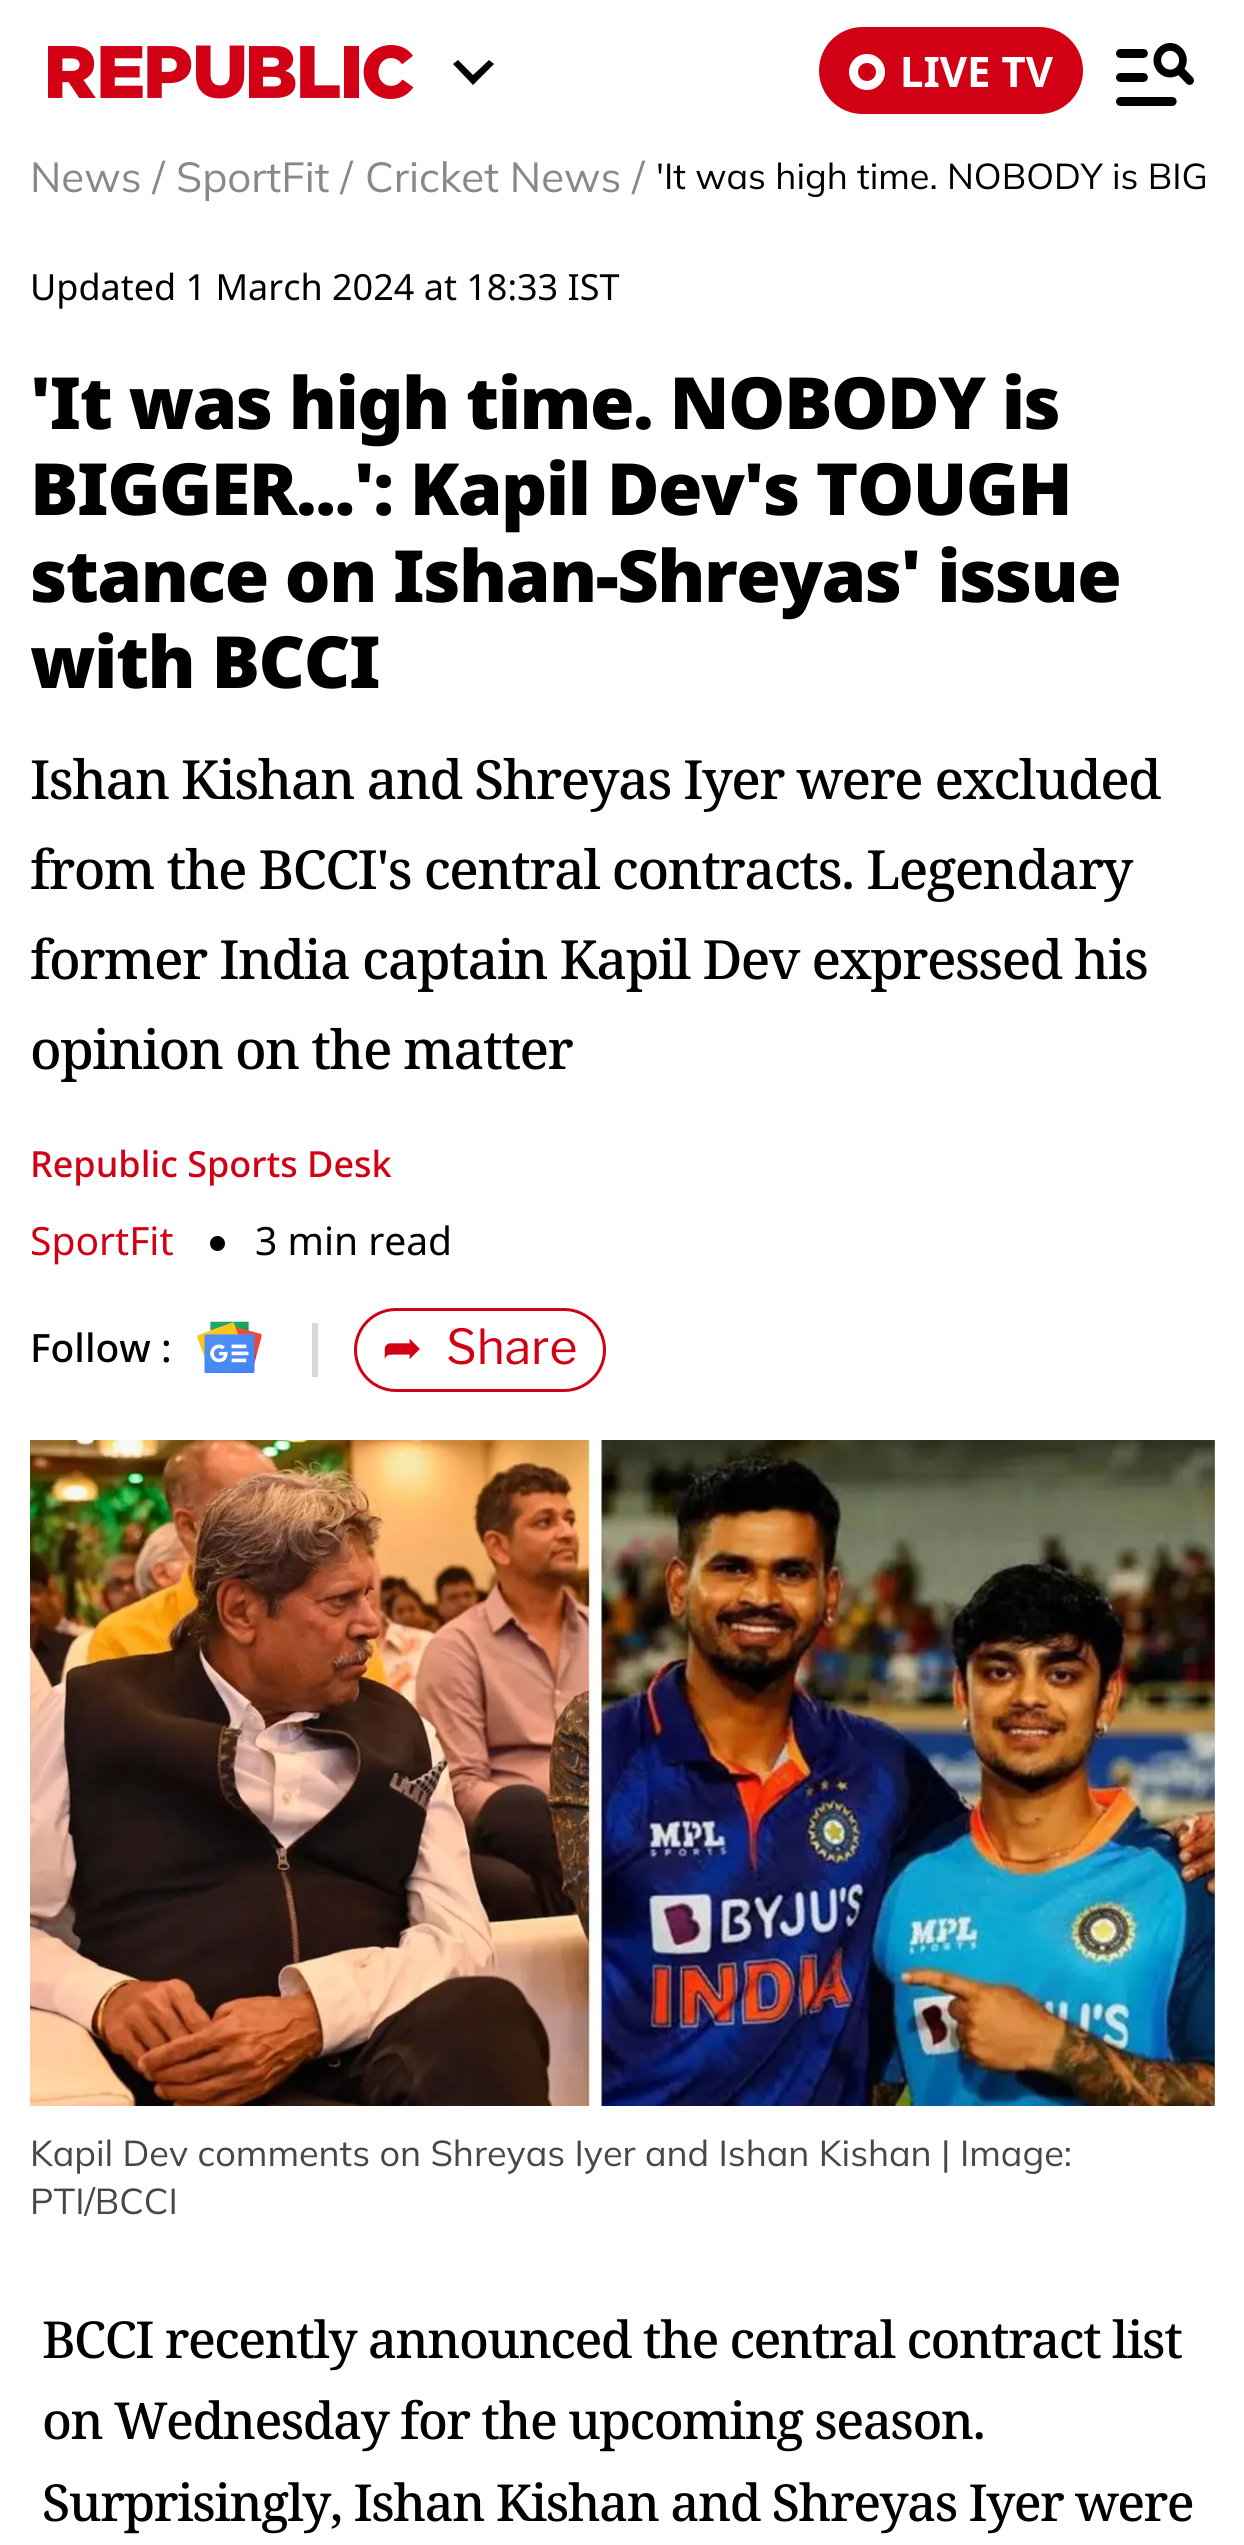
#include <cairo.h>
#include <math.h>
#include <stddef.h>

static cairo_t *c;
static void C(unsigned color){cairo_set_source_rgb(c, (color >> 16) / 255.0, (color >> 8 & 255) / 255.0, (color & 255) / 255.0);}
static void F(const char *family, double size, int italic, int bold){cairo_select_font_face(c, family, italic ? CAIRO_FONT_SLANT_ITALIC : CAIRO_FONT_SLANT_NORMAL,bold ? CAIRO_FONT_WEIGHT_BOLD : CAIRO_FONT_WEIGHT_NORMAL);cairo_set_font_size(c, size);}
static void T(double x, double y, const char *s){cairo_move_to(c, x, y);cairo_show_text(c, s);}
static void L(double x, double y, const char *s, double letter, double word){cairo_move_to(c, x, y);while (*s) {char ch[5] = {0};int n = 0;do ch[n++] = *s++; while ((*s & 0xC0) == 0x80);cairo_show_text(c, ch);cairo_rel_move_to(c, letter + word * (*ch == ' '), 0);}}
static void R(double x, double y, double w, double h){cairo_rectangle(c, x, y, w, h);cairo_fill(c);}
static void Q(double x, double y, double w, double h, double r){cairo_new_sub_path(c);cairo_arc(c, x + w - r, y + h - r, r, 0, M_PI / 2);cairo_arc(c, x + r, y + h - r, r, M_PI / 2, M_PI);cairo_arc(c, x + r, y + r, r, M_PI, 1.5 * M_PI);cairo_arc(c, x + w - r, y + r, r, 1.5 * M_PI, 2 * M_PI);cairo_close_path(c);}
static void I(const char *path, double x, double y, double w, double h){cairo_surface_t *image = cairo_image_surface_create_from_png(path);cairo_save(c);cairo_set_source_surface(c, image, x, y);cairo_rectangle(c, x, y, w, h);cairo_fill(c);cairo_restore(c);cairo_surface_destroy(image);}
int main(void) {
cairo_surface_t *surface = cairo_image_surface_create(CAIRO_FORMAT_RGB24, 1244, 2545);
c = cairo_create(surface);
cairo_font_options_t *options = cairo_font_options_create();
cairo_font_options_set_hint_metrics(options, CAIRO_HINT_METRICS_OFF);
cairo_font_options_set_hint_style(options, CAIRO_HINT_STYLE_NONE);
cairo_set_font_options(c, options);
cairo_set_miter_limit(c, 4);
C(0xffffff);
cairo_paint(c);
I("1.png",48,45,366,54);
C(0x030303);
cairo_new_path(c);
cairo_move_to(c,473,85);
cairo_line_to(c,453,64);
cairo_line_to(c,458,60);
cairo_line_to(c,473,75);
cairo_line_to(c,489,60);
cairo_line_to(c,494,64);
cairo_close_path(c);
cairo_fill(c);
C(0xd10014);
Q(819,27,264,87,43.5);
cairo_fill(c);
C(0xffffff);
cairo_arc(c,867,72,18,0,2 * M_PI);
cairo_fill(c);
C(0xd10014);
cairo_arc(c,867,72,9,0,2 * M_PI);
cairo_fill(c);
F("Noto Sans",42,0,1);
C(0xffffff);
T(900,87,"LIVE TV");
I("2.png",1116,43,78,63);
F("Mulish",42,0,0);
C(0x888888);
T(30,192,"News /");
T(176,192,"SportFit /");
T(365,192,"Cricket News /");
F("Mulish",36,0,0);
C(0x000000);
T(656,189,"'It was high time. NOBODY is BIG");
F("Noto Sans",36,0,0);
T(30,300,"Updated 1 March 2024 at 18:33 IST");
F("Noto Sans Black",72,0,0);
L(30,429,"'It was high time. NOBODY is",-1.5,0);
L(30,515,"BIGGER...': Kapil Dev's TOUGH",-1.5,0);
L(30,602,"stance on Ishan-Shreyas' issue",-1.5,0);
L(30,688,"with BCCI",-1.5,0);
F("Noto Serif Medium",54,0,0);
L(30,799,"Ishan Kishan and Shreyas Iyer were excluded",-1.5,0);
L(30,889,"from the BCCI's central contracts. Legendary",-1.5,0);
L(30,979,"former India captain Kapil Dev expressed his",-1.5,0);
L(30,1069,"opinion on the matter",-1.5,0);
F("Noto Sans Medium",36,0,0);
C(0xd10014);
T(30,1177,"Republic Sports Desk");
F("Noto Sans",39,0,0);
T(30,1255,"SportFit");
C(0x000000);
cairo_new_path(c);
cairo_arc(c,217.5,1243.5,7.5,0,2 * M_PI);
cairo_fill(c);
T(255,1255,"3 min read");
F("Noto Sans Medium",39,0,0);
T(30,1362,"Follow :");
I("3.png",197,1321,65,52);
C(0xd9d9d9);
R(312,1323,6,54);
Q(355.5,1309.5,249,81,40.5);
C(0xd10014);
cairo_set_line_width(c,3);
cairo_stroke(c);
F("DejaVu Sans",48,0,0);
T(382,1364,"➦");
F("Libre Franklin",48,0,0);
T(446,1364,"Share");
I("4.png",30,1440,1185,666);
F("Mulish",36,0,0);
C(0x474747);
T(30,2166,"Kapil Dev comments on Shreyas Iyer and Ishan Kishan | Image:");
T(30,2214,"PTI/BCCI");
F("Noto Serif Medium",51,0,0);
C(0x000000);
L(42,2358,"BCCI recently announced the central contract list",-1.5,0);
L(42,2439,"on Wednesday for the upcoming season.",-1.5,0);
L(42,2521,"Surprisingly, Ishan Kishan and Shreyas Iyer were",-1.5,0);
cairo_surface_write_to_png(surface, "o.png");
cairo_font_options_destroy(options);
cairo_destroy(c);
cairo_surface_destroy(surface);
return 0;
}
